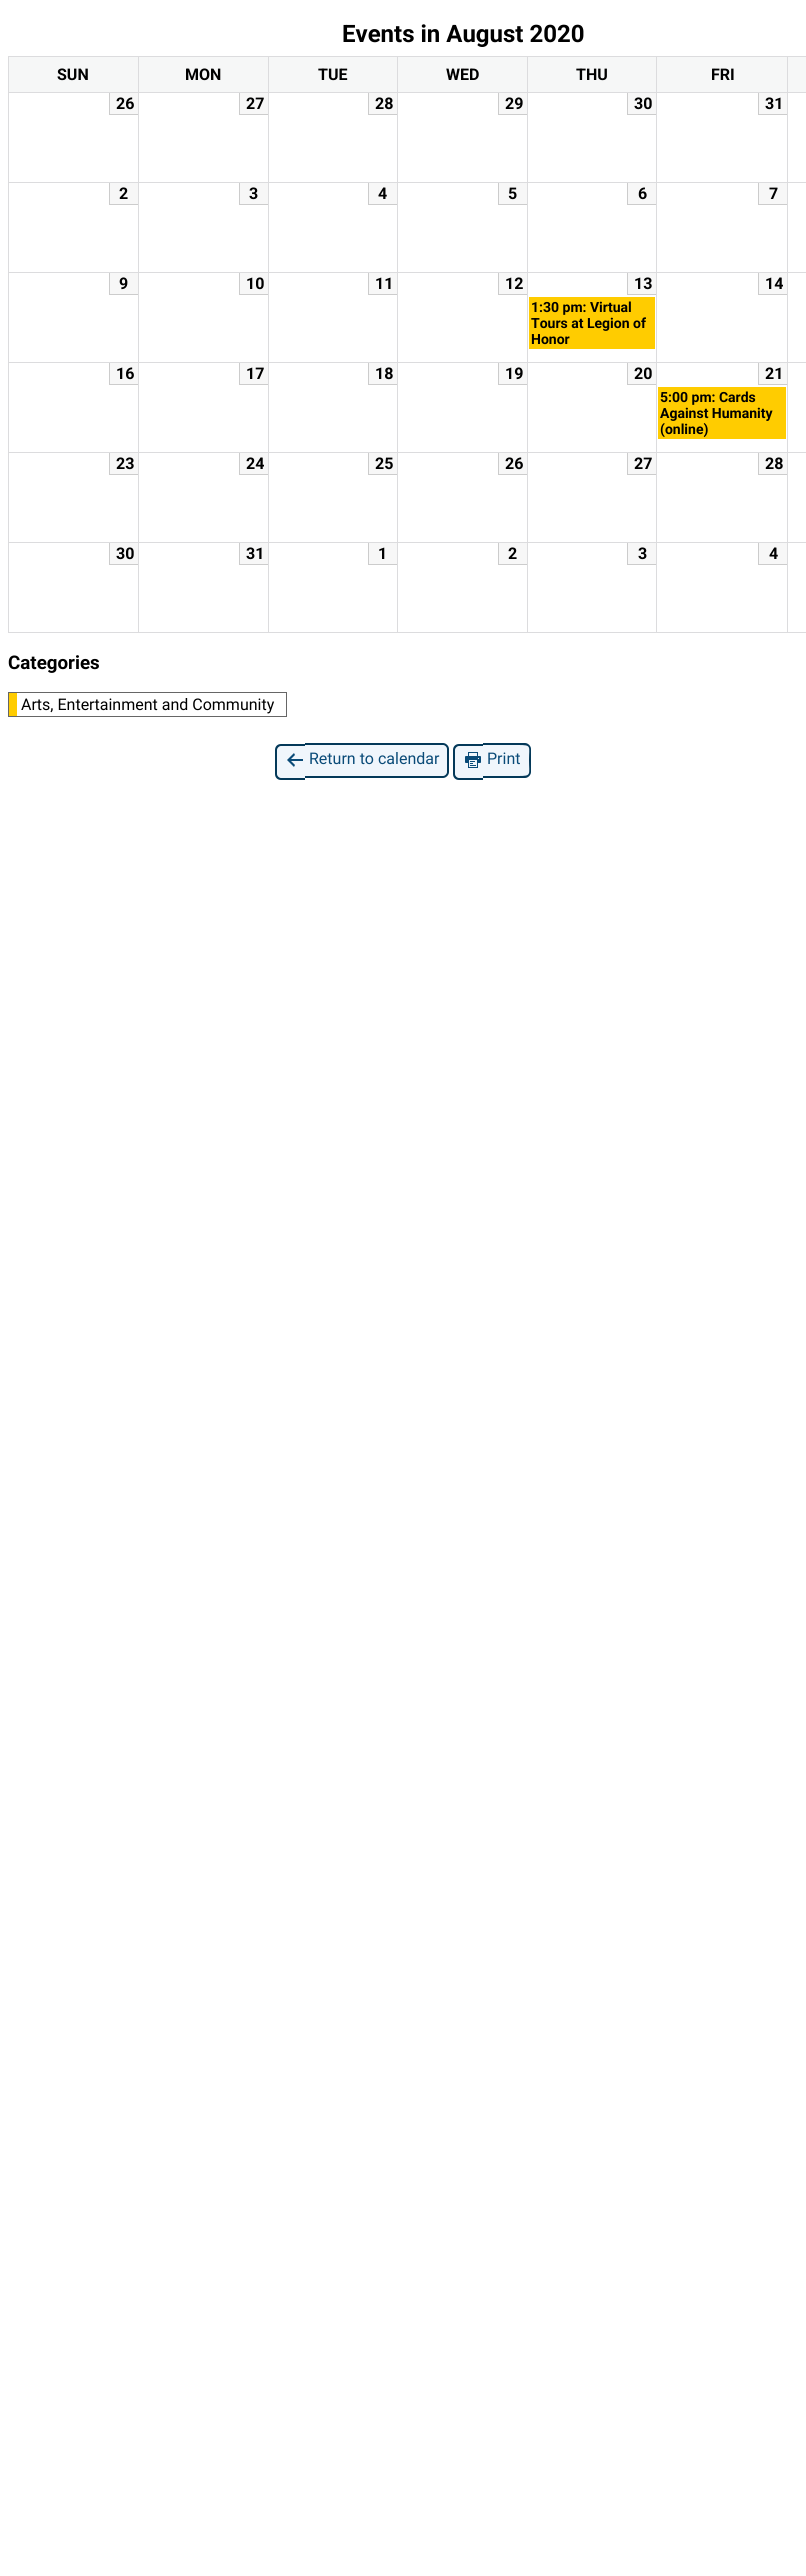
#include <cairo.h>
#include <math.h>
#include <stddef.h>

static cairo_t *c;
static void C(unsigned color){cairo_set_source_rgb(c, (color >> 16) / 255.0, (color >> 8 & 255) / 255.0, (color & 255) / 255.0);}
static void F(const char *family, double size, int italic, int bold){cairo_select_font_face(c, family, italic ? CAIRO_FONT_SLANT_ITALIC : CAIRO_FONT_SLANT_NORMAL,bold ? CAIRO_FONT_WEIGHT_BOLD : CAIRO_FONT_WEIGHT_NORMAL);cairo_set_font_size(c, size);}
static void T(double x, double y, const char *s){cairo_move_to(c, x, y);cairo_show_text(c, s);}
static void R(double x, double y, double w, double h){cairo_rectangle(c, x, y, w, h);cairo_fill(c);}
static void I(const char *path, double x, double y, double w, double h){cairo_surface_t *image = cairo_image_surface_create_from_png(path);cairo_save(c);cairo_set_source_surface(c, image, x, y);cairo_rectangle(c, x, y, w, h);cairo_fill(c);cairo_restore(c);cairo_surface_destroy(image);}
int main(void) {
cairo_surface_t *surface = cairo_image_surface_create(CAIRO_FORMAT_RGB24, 806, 2576);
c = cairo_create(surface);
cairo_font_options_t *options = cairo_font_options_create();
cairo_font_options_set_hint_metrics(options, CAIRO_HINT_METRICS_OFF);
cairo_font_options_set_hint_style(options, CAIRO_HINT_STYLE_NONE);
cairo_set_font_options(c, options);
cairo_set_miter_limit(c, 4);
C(0xffffff);
cairo_paint(c);
F("Roboto",24,0,1);
C(0x000000);
T(342,42,"Events in August 2020");
C(0xdcdcde);
R(8,56,798,1);
R(8,56,1,577);
C(0xf6f7f7);
R(9,57,129,35);
F("Roboto",16,0,1);
C(0x000000);
T(57,80,"SUN");
C(0xf6f7f7);
R(139,57,129,35);
C(0xdcdcde);
R(787,92,19,1);
R(787,182,19,1);
R(787,272,19,1);
R(787,362,19,1);
R(787,452,19,1);
R(787,542,19,1);
R(787,632,19,1);
R(787,542,1,91);
R(656,542,132,1);
R(787,452,1,91);
R(656,452,132,1);
R(787,362,1,91);
R(656,362,132,1);
R(787,272,1,91);
R(656,272,132,1);
R(787,182,1,91);
R(656,182,132,1);
R(787,92,1,91);
R(656,92,132,1);
R(656,632,132,1);
R(656,542,1,91);
R(527,542,130,1);
R(656,452,1,91);
R(527,452,130,1);
R(656,362,1,91);
R(527,362,130,1);
R(656,272,1,91);
R(527,272,130,1);
R(656,182,1,91);
R(527,182,130,1);
R(656,92,1,91);
R(527,92,130,1);
R(527,632,130,1);
R(527,542,1,91);
R(397,542,131,1);
R(527,452,1,91);
R(397,452,131,1);
R(527,362,1,91);
R(397,362,131,1);
R(527,272,1,91);
R(397,272,131,1);
R(527,182,1,91);
R(397,182,131,1);
R(527,92,1,91);
R(397,92,131,1);
R(397,632,131,1);
R(397,542,1,91);
R(268,542,130,1);
R(397,452,1,91);
R(268,452,130,1);
R(397,362,1,91);
R(268,362,130,1);
R(397,272,1,91);
R(268,272,130,1);
R(397,182,1,91);
R(268,182,130,1);
R(397,92,1,91);
R(268,92,130,1);
R(268,632,130,1);
R(268,542,1,91);
R(138,542,131,1);
R(268,452,1,91);
R(138,452,131,1);
R(268,362,1,91);
R(138,362,131,1);
R(268,272,1,91);
R(138,272,131,1);
R(268,182,1,91);
R(138,182,131,1);
R(268,92,1,91);
R(138,92,131,1);
R(138,632,131,1);
R(138,542,1,91);
R(8,542,131,1);
R(138,452,1,91);
R(8,452,131,1);
R(138,362,1,91);
R(8,362,131,1);
R(138,272,1,91);
R(8,272,131,1);
R(138,182,1,91);
R(8,182,131,1);
R(138,92,1,91);
R(8,92,131,1);
R(138,56,1,37);
C(0x000000);
T(185,80,"MON");
C(0xf6f7f7);
R(269,57,128,35);
C(0xdcdcde);
R(268,56,1,37);
C(0x000000);
T(318,80,"TUE");
C(0xf6f7f7);
R(398,57,129,35);
C(0xdcdcde);
R(397,56,1,37);
C(0x000000);
T(446,80,"WED");
C(0xf6f7f7);
R(528,57,128,35);
C(0xdcdcde);
R(527,56,1,37);
C(0x000000);
T(576,80,"THU");
C(0xf6f7f7);
R(657,57,130,35);
C(0xdcdcde);
R(656,56,1,37);
C(0x000000);
T(711,80,"FRI");
C(0xf6f7f7);
R(788,57,18,35);
C(0xdcdcde);
R(787,56,1,37);
C(0xf7f7f7);
R(110,93,28,21);
C(0xcccccc);
R(109,114,29,1);
R(109,93,1,22);
C(0x000000);
T(116,109,"26");
C(0xf7f7f7);
R(240,93,28,21);
C(0xcccccc);
R(239,114,29,1);
R(239,93,1,22);
C(0x000000);
T(246,109,"27");
C(0xf7f7f7);
R(369,93,28,21);
C(0xcccccc);
R(368,114,29,1);
R(368,93,1,22);
C(0x000000);
T(375,109,"28");
C(0xf7f7f7);
R(499,93,28,21);
C(0xcccccc);
R(498,114,29,1);
R(498,93,1,22);
C(0x000000);
T(505,109,"29");
C(0xf7f7f7);
R(628,93,28,21);
C(0xcccccc);
R(627,114,29,1);
R(627,93,1,22);
C(0x000000);
T(634,109,"30");
C(0xf7f7f7);
R(759,93,28,21);
C(0xcccccc);
R(758,114,29,1);
R(758,93,1,22);
C(0x000000);
T(765,109,"31");
C(0xf7f7f7);
R(110,183,28,21);
C(0xcccccc);
R(109,204,29,1);
R(109,183,1,22);
C(0x000000);
T(119,199,"2");
C(0xf7f7f7);
R(240,183,28,21);
C(0xcccccc);
R(239,204,29,1);
R(239,183,1,22);
C(0x000000);
T(249,199,"3");
C(0xf7f7f7);
R(369,183,28,21);
C(0xcccccc);
R(368,204,29,1);
R(368,183,1,22);
C(0x000000);
T(378,199,"4");
C(0xf7f7f7);
R(499,183,28,21);
C(0xcccccc);
R(498,204,29,1);
R(498,183,1,22);
C(0x000000);
T(508,199,"5");
C(0xf7f7f7);
R(628,183,28,21);
C(0xcccccc);
R(627,204,29,1);
R(627,183,1,22);
C(0x000000);
T(638,199,"6");
C(0xf7f7f7);
R(759,183,28,21);
C(0xcccccc);
R(758,204,29,1);
R(758,183,1,22);
C(0x000000);
T(769,199,"7");
C(0xf7f7f7);
R(110,273,28,21);
C(0xcccccc);
R(109,294,29,1);
R(109,273,1,22);
C(0x000000);
T(119,289,"9");
C(0xf7f7f7);
R(240,273,28,21);
C(0xcccccc);
R(239,294,29,1);
R(239,273,1,22);
C(0x000000);
T(246,289,"10");
C(0xf7f7f7);
R(369,273,28,21);
C(0xcccccc);
R(368,294,29,1);
R(368,273,1,22);
C(0x000000);
T(375,289,"11");
C(0xf7f7f7);
R(499,273,28,21);
C(0xcccccc);
R(498,294,29,1);
R(498,273,1,22);
C(0x000000);
T(505,289,"12");
C(0xf7f7f7);
R(628,273,28,21);
C(0xcccccc);
R(627,294,29,1);
R(627,273,1,22);
C(0x000000);
T(634,289,"13");
C(0xffcc00);
R(529,297,126,52);
F("Roboto",14,0,1);
C(0x000000);
T(531,312,"1:30 pm: Virtual");
T(531,328,"Tours at Legion of");
T(531,344,"Honor");
C(0xf7f7f7);
R(759,273,28,21);
C(0xcccccc);
R(758,294,29,1);
R(758,273,1,22);
F("Roboto",16,0,1);
C(0x000000);
T(765,289,"14");
C(0xf7f7f7);
R(110,363,28,21);
C(0xcccccc);
R(109,384,29,1);
R(109,363,1,22);
C(0x000000);
T(116,379,"16");
C(0xf7f7f7);
R(240,363,28,21);
C(0xcccccc);
R(239,384,29,1);
R(239,363,1,22);
C(0x000000);
T(246,379,"17");
C(0xf7f7f7);
R(369,363,28,21);
C(0xcccccc);
R(368,384,29,1);
R(368,363,1,22);
C(0x000000);
T(375,379,"18");
C(0xf7f7f7);
R(499,363,28,21);
C(0xcccccc);
R(498,384,29,1);
R(498,363,1,22);
C(0x000000);
T(505,379,"19");
C(0xf7f7f7);
R(628,363,28,21);
C(0xcccccc);
R(627,384,29,1);
R(627,363,1,22);
C(0x000000);
T(634,379,"20");
C(0xf7f7f7);
R(759,363,28,21);
C(0xcccccc);
R(758,384,29,1);
R(758,363,1,22);
C(0x000000);
T(765,379,"21");
C(0xffcc00);
R(658,387,128,52);
F("Roboto",14,0,1);
C(0x000000);
T(660,402,"5:00 pm: Cards");
T(660,418,"Against Humanity");
T(660,434,"(online)");
C(0xf7f7f7);
R(110,453,28,21);
C(0xcccccc);
R(109,474,29,1);
R(109,453,1,22);
F("Roboto",16,0,1);
C(0x000000);
T(116,469,"23");
C(0xf7f7f7);
R(240,453,28,21);
C(0xcccccc);
R(239,474,29,1);
R(239,453,1,22);
C(0x000000);
T(246,469,"24");
C(0xf7f7f7);
R(369,453,28,21);
C(0xcccccc);
R(368,474,29,1);
R(368,453,1,22);
C(0x000000);
T(375,469,"25");
C(0xf7f7f7);
R(499,453,28,21);
C(0xcccccc);
R(498,474,29,1);
R(498,453,1,22);
C(0x000000);
T(505,469,"26");
C(0xf7f7f7);
R(628,453,28,21);
C(0xcccccc);
R(627,474,29,1);
R(627,453,1,22);
C(0x000000);
T(634,469,"27");
C(0xf7f7f7);
R(759,453,28,21);
C(0xcccccc);
R(758,474,29,1);
R(758,453,1,22);
C(0x000000);
T(765,469,"28");
C(0xdcdcde);
R(8,632,131,1);
C(0xf7f7f7);
R(110,543,28,21);
C(0xcccccc);
R(109,564,29,1);
R(109,543,1,22);
C(0x000000);
T(116,559,"30");
C(0xf7f7f7);
R(240,543,28,21);
C(0xcccccc);
R(239,564,29,1);
R(239,543,1,22);
C(0x000000);
T(246,559,"31");
C(0xf7f7f7);
R(369,543,28,21);
C(0xcccccc);
R(368,564,29,1);
R(368,543,1,22);
C(0x000000);
T(378,559,"1");
C(0xf7f7f7);
R(499,543,28,21);
C(0xcccccc);
R(498,564,29,1);
R(498,543,1,22);
C(0x000000);
T(508,559,"2");
C(0xf7f7f7);
R(628,543,28,21);
C(0xcccccc);
R(627,564,29,1);
R(627,543,1,22);
C(0x000000);
T(638,559,"3");
C(0xf7f7f7);
R(759,543,28,21);
C(0xcccccc);
R(758,564,29,1);
R(758,543,1,22);
C(0x000000);
T(769,559,"4");
F("Roboto",18.75,0,1);
T(8,669,"Categories");
cairo_rectangle(c,8.5,692.5,278,24);
C(0x666666);
cairo_set_line_width(c,1);
cairo_stroke(c);
C(0xffcc00);
R(9,693,8,23);
F("Roboto",16,0,0);
C(0x000000);
T(21,710,"Arts, Entertainment and Community");
C(0xf0f6fc);
cairo_new_path(c);
cairo_move_to(c,281,744);
cairo_line_to(c,305,744);
cairo_line_to(c,305,780);
cairo_line_to(c,281,780);
cairo_curve_to(c,277.5,780,275,777.5,275,774);
cairo_line_to(c,275,750);
cairo_curve_to(c,275,746.5,277.5,744,281,744);
cairo_close_path(c);
cairo_fill(c);
C(0x043959);
cairo_set_fill_rule(c,CAIRO_FILL_RULE_EVEN_ODD);
cairo_new_path(c);
cairo_move_to(c,281,744);
cairo_line_to(c,305,744);
cairo_line_to(c,305,780);
cairo_line_to(c,281,780);
cairo_curve_to(c,277.5,780,275,777.5,275,774);
cairo_line_to(c,275,750);
cairo_curve_to(c,275,746.5,277.5,744,281,744);
cairo_close_path(c);
cairo_move_to(c,281,746);
cairo_line_to(c,305,746);
cairo_line_to(c,305,778);
cairo_line_to(c,281,778);
cairo_curve_to(c,279,778,277,776,277,774);
cairo_line_to(c,277,750);
cairo_curve_to(c,277,748,279,746,281,746);
cairo_close_path(c);
cairo_fill(c);
C(0xf0f6fc);
cairo_new_path(c);
cairo_move_to(c,305,743);
cairo_line_to(c,443,743);
cairo_curve_to(c,446.5,743,449,745.5,449,749);
cairo_line_to(c,449,772);
cairo_curve_to(c,449,775.5,446.5,778,443,778);
cairo_line_to(c,305,778);
cairo_close_path(c);
cairo_fill(c);
C(0x043959);
cairo_new_path(c);
cairo_move_to(c,305,743);
cairo_line_to(c,443,743);
cairo_curve_to(c,446,743,449,746,449,749);
cairo_line_to(c,449,772);
cairo_curve_to(c,449,775,446,778,443,778);
cairo_line_to(c,305,778);
cairo_close_path(c);
cairo_move_to(c,305,745);
cairo_line_to(c,443,745);
cairo_curve_to(c,445,745,447,747,447,749);
cairo_line_to(c,447,772);
cairo_curve_to(c,447,774,445,776,443,776);
cairo_line_to(c,305,776);
cairo_close_path(c);
cairo_fill(c);
I("1.png",287,753,16,14);
C(0x0a4b78);
T(309,764,"Return to calendar");
C(0xf0f6fc);
cairo_new_path(c);
cairo_move_to(c,459,744);
cairo_line_to(c,483,744);
cairo_line_to(c,483,780);
cairo_line_to(c,459,780);
cairo_curve_to(c,455.5,780,453,777.5,453,774);
cairo_line_to(c,453,750);
cairo_curve_to(c,453,746.5,455.5,744,459,744);
cairo_close_path(c);
cairo_fill(c);
C(0x043959);
cairo_new_path(c);
cairo_move_to(c,459,744);
cairo_line_to(c,483,744);
cairo_line_to(c,483,780);
cairo_line_to(c,459,780);
cairo_curve_to(c,455.5,780,453,777.5,453,774);
cairo_line_to(c,453,750);
cairo_curve_to(c,453,746.5,455.5,744,459,744);
cairo_close_path(c);
cairo_move_to(c,459,746);
cairo_line_to(c,483,746);
cairo_line_to(c,483,778);
cairo_line_to(c,459,778);
cairo_curve_to(c,457,778,455,776,455,774);
cairo_line_to(c,455,750);
cairo_curve_to(c,455,748,457,746,459,746);
cairo_close_path(c);
cairo_fill(c);
C(0xf0f6fc);
cairo_new_path(c);
cairo_move_to(c,483,743);
cairo_line_to(c,525,743);
cairo_curve_to(c,528.5,743,531,745.5,531,749);
cairo_line_to(c,531,772);
cairo_curve_to(c,531,775.5,528.5,778,525,778);
cairo_line_to(c,483,778);
cairo_close_path(c);
cairo_fill(c);
C(0x043959);
cairo_new_path(c);
cairo_move_to(c,483,743);
cairo_line_to(c,525,743);
cairo_curve_to(c,528,743,531,746,531,749);
cairo_line_to(c,531,772);
cairo_curve_to(c,531,775,528,778,525,778);
cairo_line_to(c,483,778);
cairo_close_path(c);
cairo_move_to(c,483,745);
cairo_line_to(c,518,745);
cairo_curve_to(c,532,745,529,746,529,760);
cairo_curve_to(c,529,775,532,776,518,776);
cairo_line_to(c,483,776);
cairo_close_path(c);
cairo_fill(c);
I("2.png",465,752,16,16);
C(0x0a4b78);
T(487,764,"Print");
cairo_surface_write_to_png(surface, "o.png");
cairo_font_options_destroy(options);
cairo_destroy(c);
cairo_surface_destroy(surface);
return 0;
}
